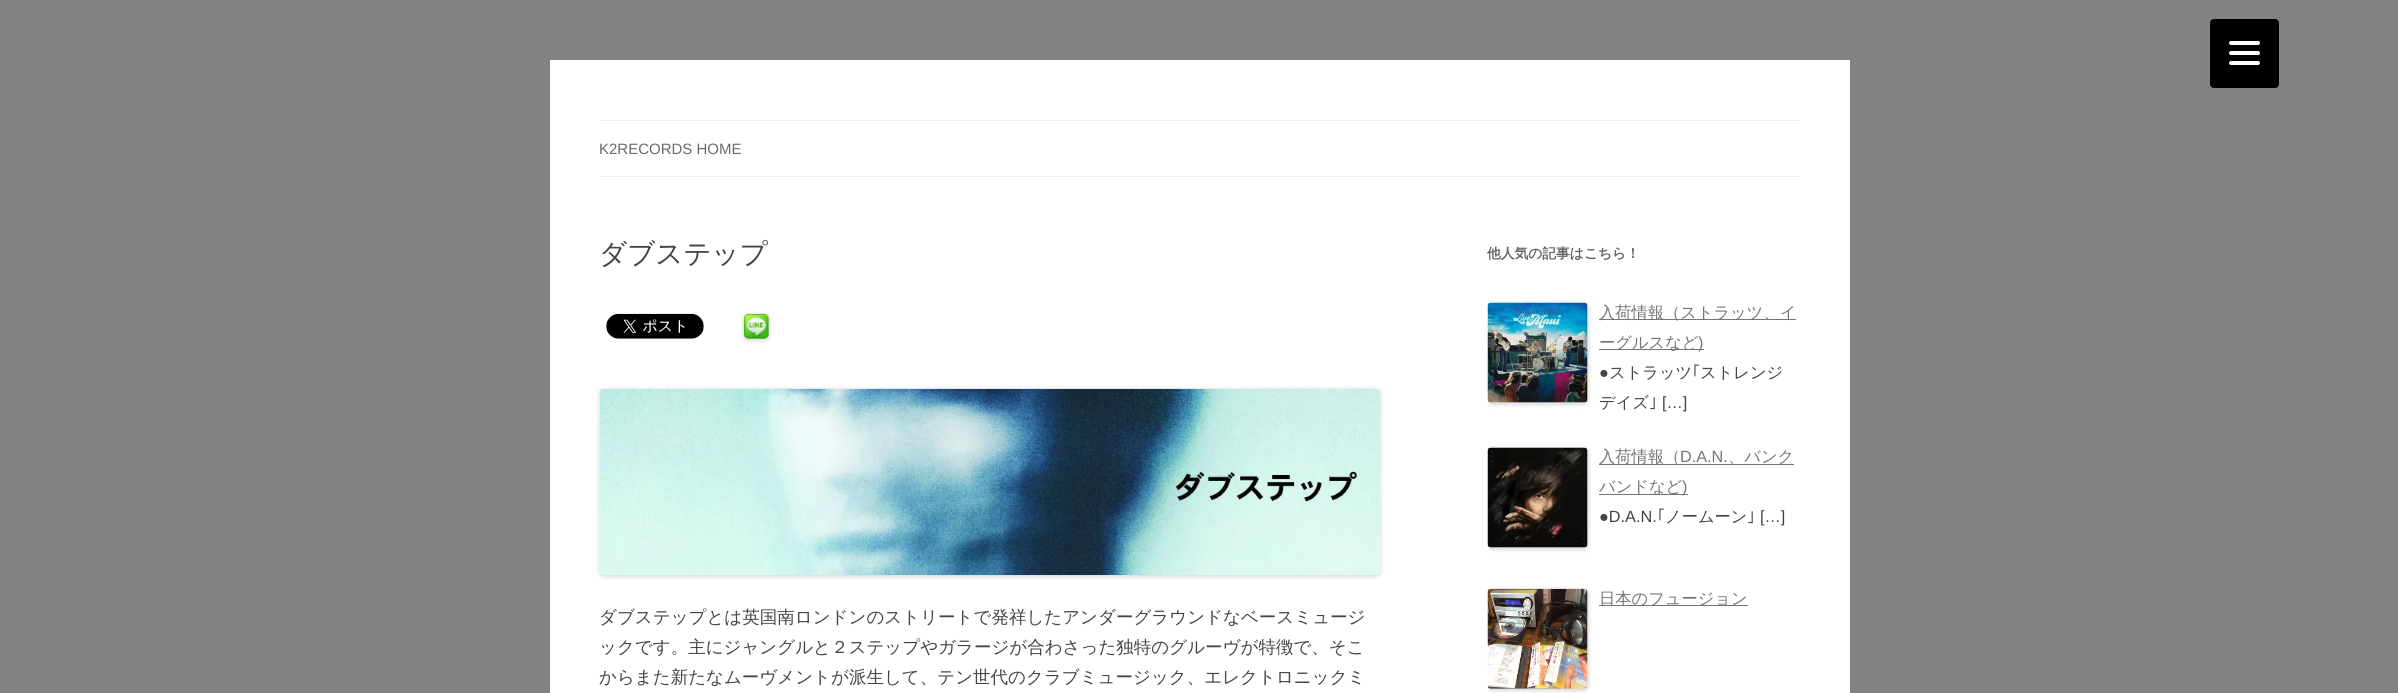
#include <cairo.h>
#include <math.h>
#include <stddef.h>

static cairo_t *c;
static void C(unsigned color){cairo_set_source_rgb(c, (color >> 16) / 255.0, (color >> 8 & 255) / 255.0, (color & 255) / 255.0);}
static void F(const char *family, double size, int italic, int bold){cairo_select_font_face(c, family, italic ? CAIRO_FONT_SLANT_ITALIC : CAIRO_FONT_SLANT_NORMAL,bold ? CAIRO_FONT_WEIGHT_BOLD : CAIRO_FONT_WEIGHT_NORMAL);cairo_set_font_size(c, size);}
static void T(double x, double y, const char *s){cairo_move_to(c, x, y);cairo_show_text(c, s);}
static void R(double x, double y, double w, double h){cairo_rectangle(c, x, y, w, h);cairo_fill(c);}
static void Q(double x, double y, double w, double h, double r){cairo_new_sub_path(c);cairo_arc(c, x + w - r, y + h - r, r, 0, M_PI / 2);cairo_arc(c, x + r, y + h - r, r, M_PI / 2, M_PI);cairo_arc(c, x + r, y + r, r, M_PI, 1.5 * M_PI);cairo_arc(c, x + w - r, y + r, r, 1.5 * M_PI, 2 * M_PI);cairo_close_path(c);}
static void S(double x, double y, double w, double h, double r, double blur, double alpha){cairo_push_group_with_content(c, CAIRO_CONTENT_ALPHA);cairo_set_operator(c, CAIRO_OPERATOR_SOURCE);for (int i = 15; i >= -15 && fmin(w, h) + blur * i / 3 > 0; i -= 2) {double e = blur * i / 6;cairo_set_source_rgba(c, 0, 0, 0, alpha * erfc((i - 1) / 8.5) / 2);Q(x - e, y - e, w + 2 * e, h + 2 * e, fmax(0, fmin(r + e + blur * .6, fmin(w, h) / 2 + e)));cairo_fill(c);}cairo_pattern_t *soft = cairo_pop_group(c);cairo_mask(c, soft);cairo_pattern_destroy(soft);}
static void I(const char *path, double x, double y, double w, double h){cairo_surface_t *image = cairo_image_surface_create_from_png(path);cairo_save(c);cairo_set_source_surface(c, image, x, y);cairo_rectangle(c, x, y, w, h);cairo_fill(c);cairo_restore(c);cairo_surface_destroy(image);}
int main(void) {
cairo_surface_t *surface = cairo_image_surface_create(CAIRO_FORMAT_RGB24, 2398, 693);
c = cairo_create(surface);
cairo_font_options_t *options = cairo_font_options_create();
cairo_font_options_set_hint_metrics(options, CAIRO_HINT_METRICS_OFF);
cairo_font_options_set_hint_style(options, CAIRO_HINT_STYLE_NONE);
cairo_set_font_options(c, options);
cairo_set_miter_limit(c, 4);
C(0x828282);
cairo_paint(c);
C(0x000000);
Q(2210,19,69,69,4);
cairo_fill(c);
C(0xffffff);
Q(2229,51,31,4,2);
cairo_fill(c);
Q(2229,41,31,4,2);
cairo_fill(c);
Q(2229,61,31,4,2);
cairo_fill(c);
R(550,60,1300,633);
C(0xededed);
R(600,120,1200,1);
R(600,176,1200,1);
F("Liberation Sans",15,0,0);
C(0x6a6a6a);
T(599,154,"K2RECORDS HOME");
F("WenQuanYi Zen Hei Medium",27.5,0,0);
C(0x444444);
T(599,263,"ダブステップ");
I("1.png",606,313,98,26);
C(0x000000);
S(744,315,25,25,4,2.5,.2);
I("2.png",743,313,26,26);
S(600,390,780,186,4,2.5,.2);
I("3.png",600,388,780,187);
F("WenQuanYi Zen Hei Medium",17.5,0,0);
C(0x444444);
T(599,623,"ダブステップとは英国南ロンドンのストリートで発祥したアンダーグラウンドなベースミュージ");
T(599,653,"ックです。主にジャングルと２ステップやガラージが合わさった独特のグルーヴが特徴で、そこ");
T(599,683,"からまた新たなムーヴメントが派生して、テン世代のクラブミュージック、エレクトロニックミ");
F("WenQuanYi Zen Hei",13.75,0,1);
C(0x636363);
T(1487,258,"他人気の記事はこちら！");
cairo_save(c);
cairo_rectangle(c,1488,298,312,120);
cairo_clip(c);
C(0x000000);
S(1488,304,100,100,4,2.5,.2);
cairo_restore(c);
I("4.png",1487,302,101,101);
C(0x757575);
R(1599,319,197,1);
F("WenQuanYi Zen Hei Medium",16.25,0,0);
T(1599,318,"入荷情報（ストラッツ、イ");
R(1599,349,105,1);
T(1599,348,"ーグルスなど");
F("Liberation Sans",16.25,0,0);
T(1698,348,")");
C(0x444444);
T(1599,378,"●");
F("WenQuanYi Zen Hei Medium",16.25,0,0);
T(1609,378,"ストラッツ");
F("IPAPGothic",16.25,0,0);
T(1692,378,"｢");
F("WenQuanYi Zen Hei Medium",16.25,0,0);
T(1700,378,"ストレンジ");
T(1599,408,"デイズ");
F("IPAPGothic",16.25,0,0);
T(1649,408,"｣");
F("Liberation Sans",16.25,0,0);
T(1662,408,"[…]");
cairo_save(c);
cairo_rectangle(c,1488,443,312,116);
cairo_clip(c);
C(0x000000);
S(1488,449,100,100,4,2.5,.2);
cairo_restore(c);
I("5.png",1487,447,101,101);
C(0x757575);
R(1599,464,195,1);
F("WenQuanYi Zen Hei Medium",16.25,0,0);
T(1599,462,"入荷情報（");
F("Liberation Sans",16.25,0,0);
T(1680,462,"D.A.N.");
F("WenQuanYi Zen Hei Medium",16.25,0,0);
T(1728,462,"、バンク");
R(1599,494,89,1);
T(1599,492,"バンドなど");
F("Liberation Sans",16.25,0,0);
T(1682,492,")");
C(0x444444);
T(1599,522,"●D.A.N.");
F("IPAPGothic",16.25,0,0);
T(1657,522,"｢");
F("WenQuanYi Zen Hei Medium",16.25,0,0);
T(1665,522,"ノームーン");
F("IPAPGothic",16.25,0,0);
T(1747,522,"｣");
F("Liberation Sans",16.25,0,0);
T(1760,522,"[…]");
cairo_save(c);
cairo_rectangle(c,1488,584,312,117);
cairo_clip(c);
C(0x000000);
S(1488,590,100,100,4,2.5,.2);
cairo_restore(c);
I("6.png",1487,588,101,101);
C(0x757575);
R(1599,605,149,1);
F("WenQuanYi Zen Hei Medium",16.25,0,0);
T(1599,604,"日本のフュージョン");
cairo_surface_write_to_png(surface, "o.png");
cairo_font_options_destroy(options);
cairo_destroy(c);
cairo_surface_destroy(surface);
return 0;
}
